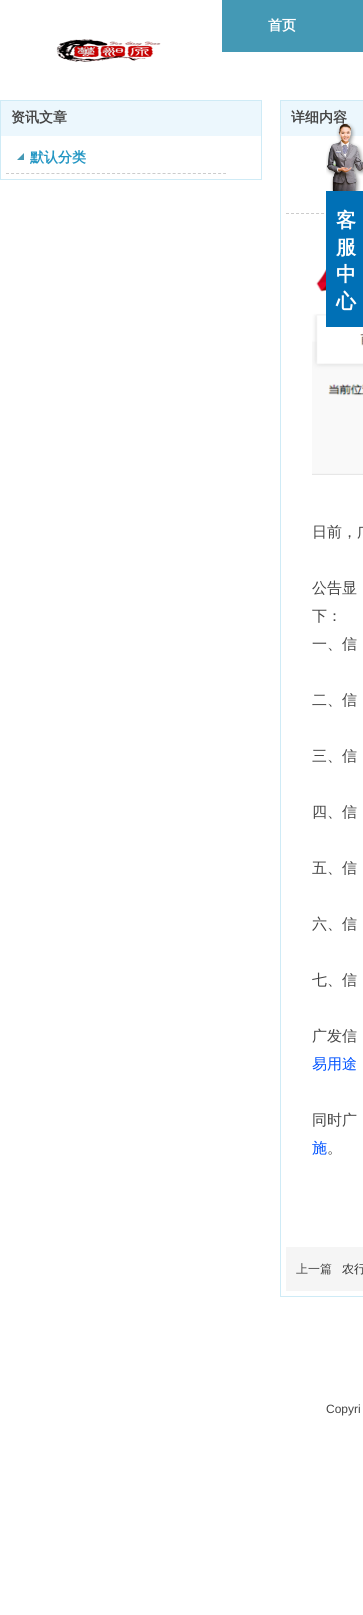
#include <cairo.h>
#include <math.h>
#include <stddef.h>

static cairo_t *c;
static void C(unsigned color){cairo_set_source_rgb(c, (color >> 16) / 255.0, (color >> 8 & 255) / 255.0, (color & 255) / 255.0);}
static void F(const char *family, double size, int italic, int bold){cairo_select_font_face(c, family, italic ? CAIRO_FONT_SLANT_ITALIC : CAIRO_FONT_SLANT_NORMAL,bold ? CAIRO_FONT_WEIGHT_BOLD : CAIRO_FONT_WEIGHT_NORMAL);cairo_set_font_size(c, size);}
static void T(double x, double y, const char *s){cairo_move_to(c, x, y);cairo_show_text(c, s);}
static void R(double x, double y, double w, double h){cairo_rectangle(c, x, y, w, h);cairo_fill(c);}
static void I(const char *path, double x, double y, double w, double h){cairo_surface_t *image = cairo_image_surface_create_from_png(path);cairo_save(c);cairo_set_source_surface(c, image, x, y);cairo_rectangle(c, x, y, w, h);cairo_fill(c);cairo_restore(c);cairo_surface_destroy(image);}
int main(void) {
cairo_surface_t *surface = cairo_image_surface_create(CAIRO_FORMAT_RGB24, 363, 1615);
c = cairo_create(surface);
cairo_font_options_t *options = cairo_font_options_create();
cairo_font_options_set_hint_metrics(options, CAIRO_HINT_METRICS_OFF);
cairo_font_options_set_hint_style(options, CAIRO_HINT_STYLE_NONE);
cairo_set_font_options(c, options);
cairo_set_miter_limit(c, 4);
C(0xffffff);
cairo_paint(c);
C(0x4499b5);
R(222,0,141,52);
F("WenQuanYi Zen Hei",14,0,1);
C(0xffffff);
T(268,30,"首页");
I("1.png",56,39,105,23);
cairo_rectangle(c,.5,100.5,261,79);
C(0xcfebf6);
cairo_set_line_width(c,1);
cairo_stroke(c);
C(0xecf7fd);
R(1,101,260,35);
C(0x444444);
T(11,122,"资讯文章");
cairo_new_path(c);
cairo_move_to(c,6,173.5);
cairo_line_to(c,226,173.5);
C(0xcccccc);
cairo_set_dash(c,(double[]){3,2.05},2,0);
cairo_stroke(c);
I("2.png",17,153,7,7);
C(0x2396c3);
T(30,162,"默认分类");
cairo_rectangle(c,280.5,100.5,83,1196);
C(0xcfebf6);
cairo_set_dash(c,NULL,0,0);
cairo_stroke(c);
C(0xecf7fd);
R(281,101,82,35);
C(0x444444);
T(291,122,"详细内容");
cairo_new_path(c);
cairo_move_to(c,286,213.5);
cairo_line_to(c,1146,213.5);
C(0xcccccc);
cairo_set_dash(c,(double[]){3,2.01},2,0);
cairo_stroke(c);
I("3.png",312,261,51,214);
F("WenQuanYi Zen Hei Medium",15,0,0);
C(0x444444);
T(312,537,"日前，广");
T(312,593,"公告显");
T(312,621,"下：");
T(312,649,"一、信");
T(312,705,"二、信");
T(312,761,"三、信");
T(312,817,"四、信");
T(312,873,"五、信");
T(312,929,"六、信");
T(312,985,"七、信");
T(312,1041,"广发信");
C(0x0052ff);
T(312,1069,"易用途");
C(0x444444);
T(312,1125,"同时广");
C(0x0052ff);
T(312,1153,"施");
C(0x444444);
T(327,1153,"。");
C(0xf5f5f5);
R(286,1247,77,44);
F("WenQuanYi Zen Hei Medium",12,0,0);
C(0x444444);
T(296,1273,"上一篇");
C(0x333333);
T(342,1273,"农行");
I("4.png",326,123,37,68);
C(0x0070b6);
R(326,191,37,136);
F("WenQuanYi Zen Hei",20,0,1);
C(0xffffff);
T(336,227,"客");
T(336,254,"服");
T(336,281,"中");
T(336,308,"心");
F("Liberation Sans",12,0,0);
C(0x444444);
T(326,1413,"Copyri");
cairo_surface_write_to_png(surface, "o.png");
cairo_font_options_destroy(options);
cairo_destroy(c);
cairo_surface_destroy(surface);
return 0;
}
